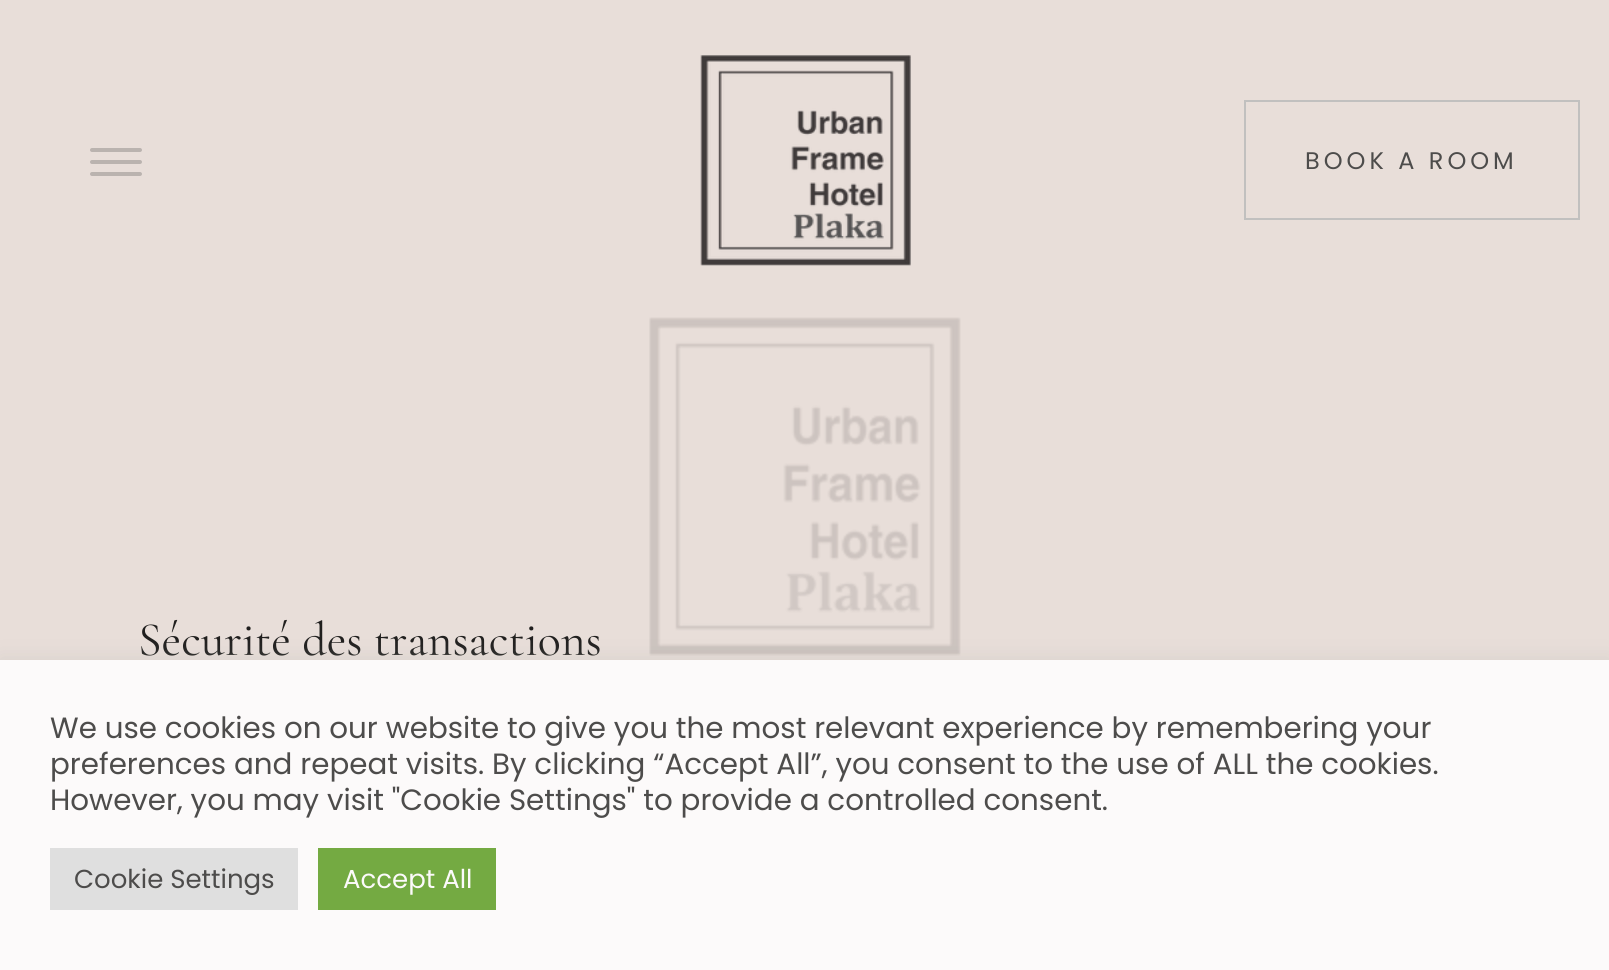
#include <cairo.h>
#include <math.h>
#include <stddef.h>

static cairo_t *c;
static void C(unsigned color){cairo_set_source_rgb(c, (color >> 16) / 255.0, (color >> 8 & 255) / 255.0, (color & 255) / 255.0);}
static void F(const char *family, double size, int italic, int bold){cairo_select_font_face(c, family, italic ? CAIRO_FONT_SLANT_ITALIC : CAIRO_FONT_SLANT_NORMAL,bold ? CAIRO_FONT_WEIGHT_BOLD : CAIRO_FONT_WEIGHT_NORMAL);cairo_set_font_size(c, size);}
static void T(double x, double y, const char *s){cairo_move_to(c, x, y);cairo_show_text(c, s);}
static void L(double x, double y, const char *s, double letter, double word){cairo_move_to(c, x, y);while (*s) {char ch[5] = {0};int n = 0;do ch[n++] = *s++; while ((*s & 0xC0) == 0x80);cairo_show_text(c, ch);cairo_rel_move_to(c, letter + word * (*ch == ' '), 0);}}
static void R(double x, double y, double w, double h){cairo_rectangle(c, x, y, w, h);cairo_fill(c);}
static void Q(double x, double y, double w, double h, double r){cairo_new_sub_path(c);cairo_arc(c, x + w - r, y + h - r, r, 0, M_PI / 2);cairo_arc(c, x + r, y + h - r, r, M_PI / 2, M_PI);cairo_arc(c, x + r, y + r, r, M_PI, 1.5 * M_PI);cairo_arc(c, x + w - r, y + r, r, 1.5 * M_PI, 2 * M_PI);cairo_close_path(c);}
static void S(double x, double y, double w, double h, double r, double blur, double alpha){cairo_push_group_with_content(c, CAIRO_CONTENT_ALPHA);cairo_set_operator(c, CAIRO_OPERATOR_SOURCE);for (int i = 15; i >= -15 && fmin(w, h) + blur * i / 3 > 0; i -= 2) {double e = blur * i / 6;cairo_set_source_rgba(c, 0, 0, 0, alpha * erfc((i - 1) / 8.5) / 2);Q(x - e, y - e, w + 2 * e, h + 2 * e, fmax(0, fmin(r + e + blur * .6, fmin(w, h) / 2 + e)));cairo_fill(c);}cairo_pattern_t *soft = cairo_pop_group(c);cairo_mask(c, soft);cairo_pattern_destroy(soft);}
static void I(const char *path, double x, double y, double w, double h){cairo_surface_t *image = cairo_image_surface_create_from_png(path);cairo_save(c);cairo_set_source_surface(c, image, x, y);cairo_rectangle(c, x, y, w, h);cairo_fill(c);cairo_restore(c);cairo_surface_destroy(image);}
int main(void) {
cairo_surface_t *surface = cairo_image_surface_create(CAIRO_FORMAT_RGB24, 1609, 970);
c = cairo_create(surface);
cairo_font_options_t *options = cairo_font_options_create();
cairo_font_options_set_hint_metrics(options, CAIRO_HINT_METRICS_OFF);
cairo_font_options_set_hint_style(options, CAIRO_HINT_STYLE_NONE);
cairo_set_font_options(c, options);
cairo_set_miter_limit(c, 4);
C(0xe8ded9);
cairo_paint(c);
C(0xbab3af);
Q(90,148,52,4,2);
cairo_fill(c);
Q(90,160,52,4,2);
cairo_fill(c);
Q(90,172,52,4,2);
cairo_fill(c);
I("1.png",700,55,211,211);
cairo_rectangle(c,1245,101,334,118);
C(0xc1c0bf);
cairo_stroke(c);
F("Poppins",24,0,0);
C(0x4d4c4b);
L(1305,169,"BOOK A ROOM",4,0);
F("Cormorant Garamond",48,0,0);
C(0x201f1e);
T(138,655,"Sécurité des transactions");
C(0xb4b2b1);
S(0,658,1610,310,0,10,.3);
I("2.png",649,317,312,339);
C(0xfcfafa);
R(0,660,1609,310);
F("Poppins",29.35,0,0);
C(0x4d4c4b);
T(50,738,"We use cookies on our website to give you the most relevant experience by remembering your");
T(50,774,"preferences and repeat visits. By clicking “Accept All”, you consent to the use of ALL the cookies.");
T(50,810,"However, you may visit \"Cookie Settings\" to provide a controlled consent.");
C(0xdfdfdf);
R(50,848,248,62);
F("Poppins",26,0,0);
C(0x4d4c4b);
T(74,888,"Cookie Settings");
C(0x74aa42);
R(318,848,178,62);
C(0xfcfafa);
T(343,888,"Accept All");
cairo_surface_write_to_png(surface, "o.png");
cairo_font_options_destroy(options);
cairo_destroy(c);
cairo_surface_destroy(surface);
return 0;
}
